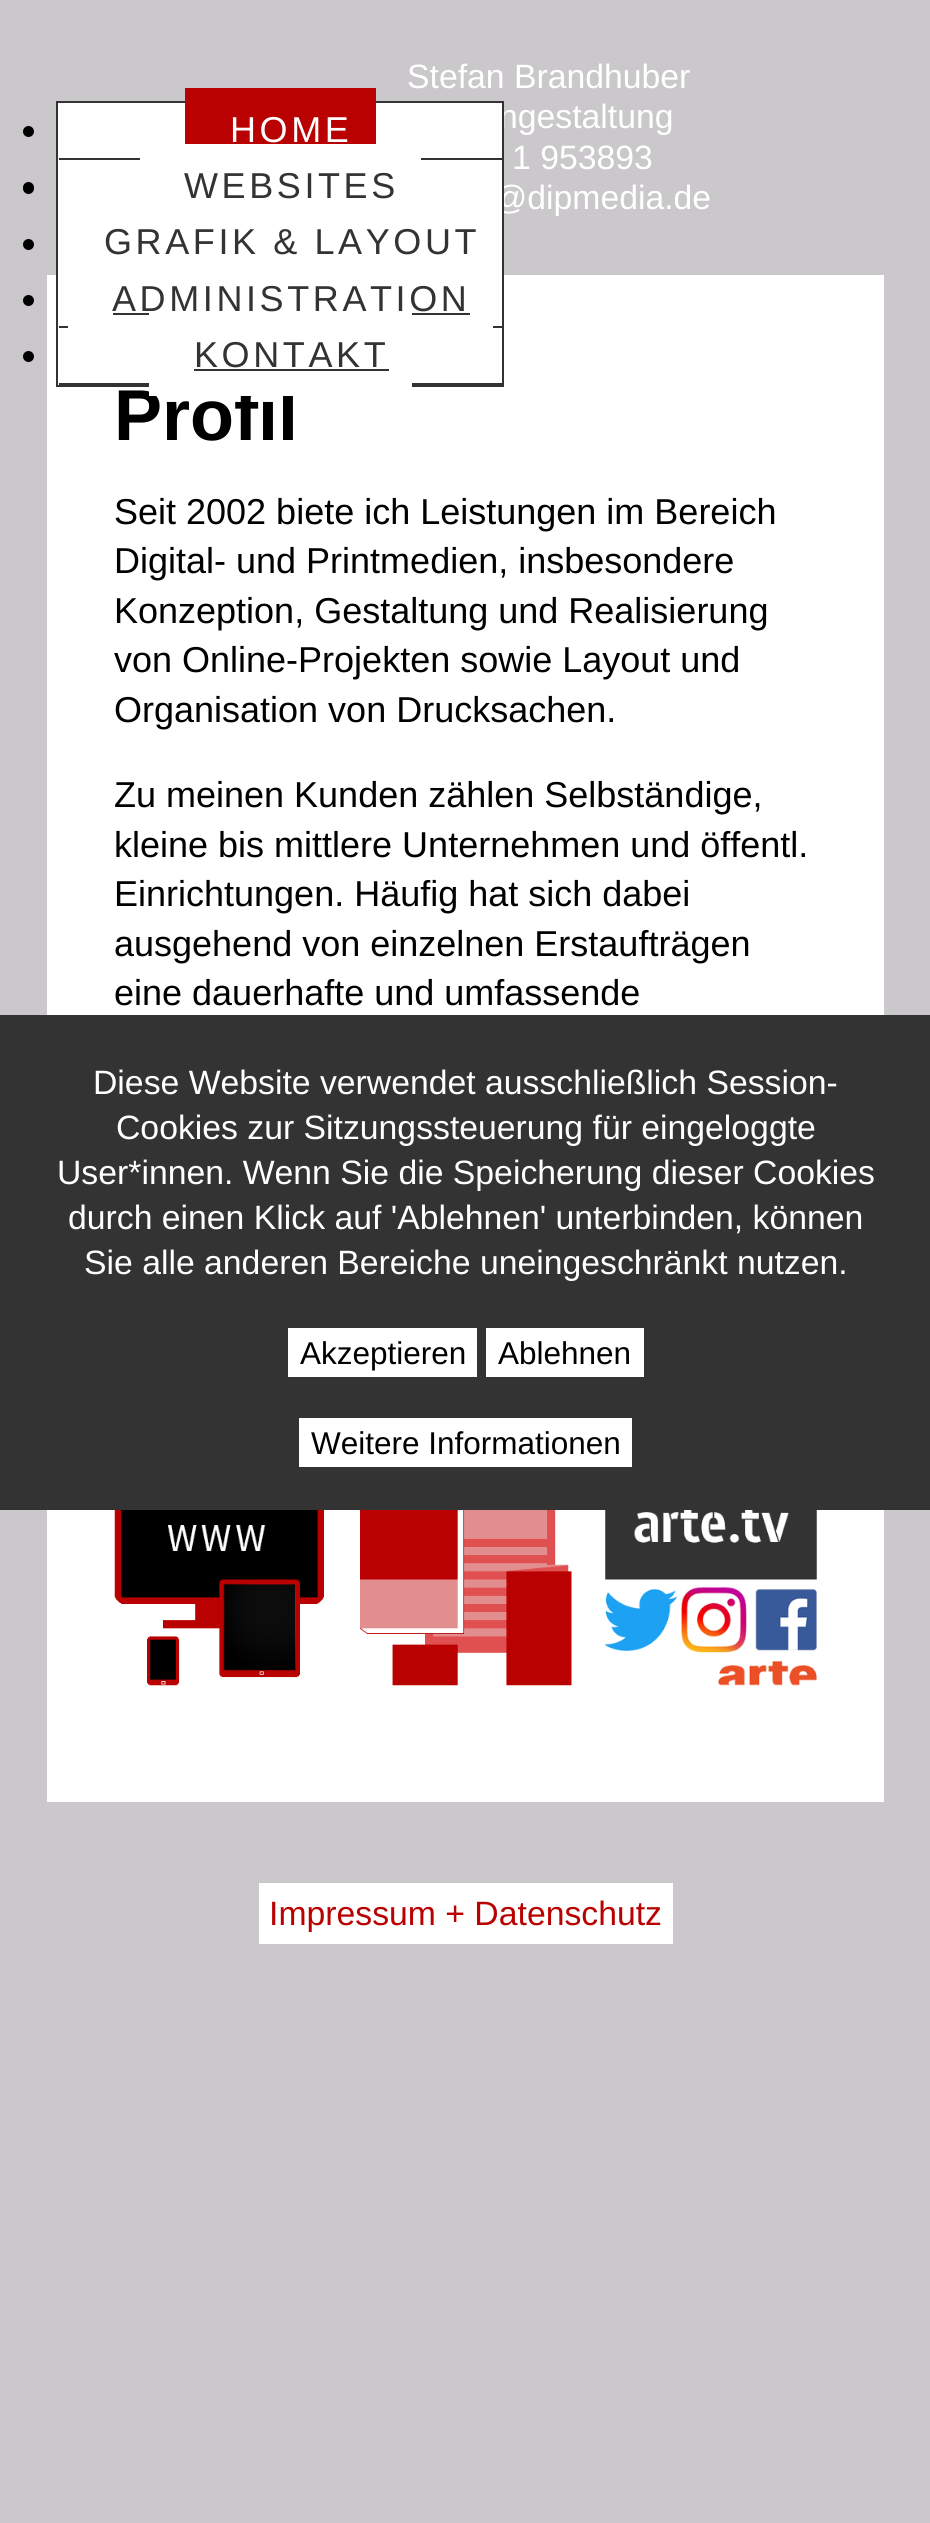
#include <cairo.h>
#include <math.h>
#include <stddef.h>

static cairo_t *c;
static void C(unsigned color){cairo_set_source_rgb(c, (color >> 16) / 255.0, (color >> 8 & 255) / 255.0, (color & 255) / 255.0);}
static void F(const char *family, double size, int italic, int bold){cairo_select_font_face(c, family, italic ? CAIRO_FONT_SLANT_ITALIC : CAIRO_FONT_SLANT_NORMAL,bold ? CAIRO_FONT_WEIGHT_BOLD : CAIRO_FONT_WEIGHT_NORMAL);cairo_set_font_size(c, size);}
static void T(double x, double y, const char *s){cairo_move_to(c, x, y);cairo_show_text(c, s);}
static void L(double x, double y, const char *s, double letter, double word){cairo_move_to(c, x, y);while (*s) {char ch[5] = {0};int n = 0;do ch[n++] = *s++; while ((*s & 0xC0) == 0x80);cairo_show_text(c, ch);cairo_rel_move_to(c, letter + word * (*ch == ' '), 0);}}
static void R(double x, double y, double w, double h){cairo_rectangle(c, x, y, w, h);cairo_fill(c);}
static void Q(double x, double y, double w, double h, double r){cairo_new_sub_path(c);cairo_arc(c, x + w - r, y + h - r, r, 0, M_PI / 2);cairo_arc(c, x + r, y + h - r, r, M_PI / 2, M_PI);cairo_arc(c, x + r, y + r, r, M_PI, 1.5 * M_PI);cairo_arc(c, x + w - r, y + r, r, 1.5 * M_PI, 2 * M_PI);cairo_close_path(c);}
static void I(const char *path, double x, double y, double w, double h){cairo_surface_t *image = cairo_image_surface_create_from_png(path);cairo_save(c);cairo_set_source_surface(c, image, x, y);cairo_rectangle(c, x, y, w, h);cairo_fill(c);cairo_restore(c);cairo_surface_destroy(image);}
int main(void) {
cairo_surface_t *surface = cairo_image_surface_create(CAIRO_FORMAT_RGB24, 930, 2523);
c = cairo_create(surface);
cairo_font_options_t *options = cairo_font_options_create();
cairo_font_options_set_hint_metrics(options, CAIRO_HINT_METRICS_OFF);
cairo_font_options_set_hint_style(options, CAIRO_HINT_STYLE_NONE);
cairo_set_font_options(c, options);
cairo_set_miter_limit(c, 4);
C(0xcac8ca);
cairo_paint(c);
C(0xffffff);
R(58,103,444,172);
F("Liberation Sans",33.75,0,0);
T(499,128,"ngestaltung");
T(493,209,"@dipmedia.de");
R(47,275,837,1527);
cairo_rectangle(c,57,102,446,284);
C(0x333333);
cairo_stroke(c);
R(59,158,443,2);
C(0x000000);
cairo_arc(c,28.5,131.5,5.5,0,2 * M_PI);
cairo_fill(c);
C(0xb90101);
R(185,88,191,56);
F("Liberation Sans",36,0,0);
C(0xffffff);
L(230,142,"HOME",3.6,0);
C(0x000000);
Q(23,182,11,12,5.5);
cairo_fill(c);
C(0x333333);
L(184,198,"WEBSITES",3.6,0);
C(0xffffff);
R(140,158,281,2);
C(0x000000);
cairo_new_path(c);
cairo_arc(c,28.5,244.5,5.5,0,2 * M_PI);
cairo_fill(c);
C(0x333333);
L(104,254,"GRAFIK & LAYOUT",3.6,0);
R(59,326,443,2);
C(0x000000);
cairo_new_path(c);
cairo_arc(c,28.5,300.5,5.5,0,2 * M_PI);
cairo_fill(c);
C(0x333333);
L(112,311,"ADMINISTRATION",3.6,0);
C(0xffffff);
R(68,326,425,2);
C(0x333333);
R(113,313,357,2);
R(59,383,443,2);
C(0x000000);
cairo_new_path(c);
cairo_arc(c,28.5,356.5,5.5,0,2 * M_PI);
cairo_fill(c);
F("Liberation Sans",72,0,1);
T(114,440,"Profil");
C(0xffffff);
R(149,313,263,83);
F("Liberation Sans",36,0,0);
C(0x333333);
L(194,367,"KONTAKT",3.6,0);
R(194,369,195,2);
F("Liberation Sans",33.75,0,0);
C(0xffffff);
T(407,88,"Stefan Brandhuber");
T(512,169,"1 953893");
F("Liberation Sans",36,0,0);
C(0x000000);
T(114,524,"Seit 2002 biete ich Leistungen im Bereich");
T(114,573,"Digital- und Printmedien, insbesondere");
T(114,623,"Konzeption, Gestaltung und Realisierung");
T(114,672,"von Online-Projekten sowie Layout und");
T(114,722,"Organisation von Drucksachen.");
T(114,807,"Zu meinen Kunden zählen Selbständige,");
T(114,857,"kleine bis mittlere Unternehmen und öffentl.");
T(114,906,"Einrichtungen. Häufig hat sich dabei");
T(114,956,"ausgehend von einzelnen Erstaufträgen");
T(114,1005,"eine dauerhafte und umfassende");
I("1.png",114,1510,210,176);
I("2.png",360,1510,212,176);
I("3.png",605,1510,212,176);
C(0xffffff);
R(259,1883,414,61);
F("Liberation Sans",33.75,0,0);
C(0xb90101);
T(269,1925,"Impressum + Datenschutz");
C(0x333333);
R(0,1015,930,495);
C(0xffffff);
T(93,1094,"Diese Website verwendet ausschließlich Session-");
T(116,1139,"Cookies zur Sitzungssteuerung für eingeloggte");
T(57,1184,"User*innen. Wenn Sie die Speicherung dieser Cookies");
T(68,1229,"durch einen Klick auf 'Ablehnen' unterbinden, können");
T(84,1274,"Sie alle anderen Bereiche uneingeschränkt nutzen.");
R(288,1328,189,49);
F("Liberation Sans",31.5,0,0);
C(0x000000);
T(300,1364,"Akzeptieren");
C(0xffffff);
R(486,1328,158,49);
C(0x000000);
T(498,1364,"Ablehnen");
C(0xffffff);
R(299,1418,333,49);
C(0x000000);
T(311,1454,"Weitere Informationen");
cairo_surface_write_to_png(surface, "o.png");
cairo_font_options_destroy(options);
cairo_destroy(c);
cairo_surface_destroy(surface);
return 0;
}
